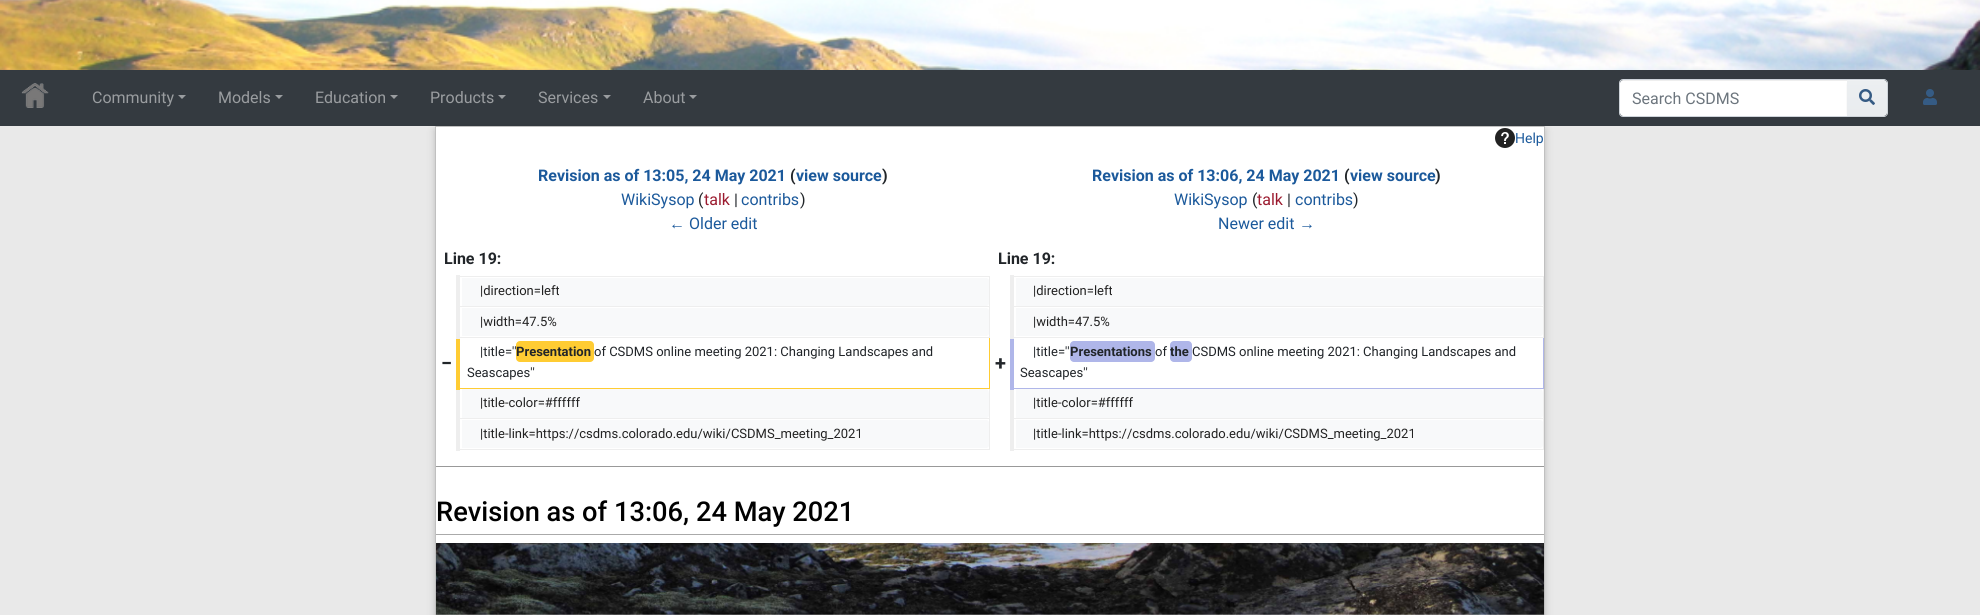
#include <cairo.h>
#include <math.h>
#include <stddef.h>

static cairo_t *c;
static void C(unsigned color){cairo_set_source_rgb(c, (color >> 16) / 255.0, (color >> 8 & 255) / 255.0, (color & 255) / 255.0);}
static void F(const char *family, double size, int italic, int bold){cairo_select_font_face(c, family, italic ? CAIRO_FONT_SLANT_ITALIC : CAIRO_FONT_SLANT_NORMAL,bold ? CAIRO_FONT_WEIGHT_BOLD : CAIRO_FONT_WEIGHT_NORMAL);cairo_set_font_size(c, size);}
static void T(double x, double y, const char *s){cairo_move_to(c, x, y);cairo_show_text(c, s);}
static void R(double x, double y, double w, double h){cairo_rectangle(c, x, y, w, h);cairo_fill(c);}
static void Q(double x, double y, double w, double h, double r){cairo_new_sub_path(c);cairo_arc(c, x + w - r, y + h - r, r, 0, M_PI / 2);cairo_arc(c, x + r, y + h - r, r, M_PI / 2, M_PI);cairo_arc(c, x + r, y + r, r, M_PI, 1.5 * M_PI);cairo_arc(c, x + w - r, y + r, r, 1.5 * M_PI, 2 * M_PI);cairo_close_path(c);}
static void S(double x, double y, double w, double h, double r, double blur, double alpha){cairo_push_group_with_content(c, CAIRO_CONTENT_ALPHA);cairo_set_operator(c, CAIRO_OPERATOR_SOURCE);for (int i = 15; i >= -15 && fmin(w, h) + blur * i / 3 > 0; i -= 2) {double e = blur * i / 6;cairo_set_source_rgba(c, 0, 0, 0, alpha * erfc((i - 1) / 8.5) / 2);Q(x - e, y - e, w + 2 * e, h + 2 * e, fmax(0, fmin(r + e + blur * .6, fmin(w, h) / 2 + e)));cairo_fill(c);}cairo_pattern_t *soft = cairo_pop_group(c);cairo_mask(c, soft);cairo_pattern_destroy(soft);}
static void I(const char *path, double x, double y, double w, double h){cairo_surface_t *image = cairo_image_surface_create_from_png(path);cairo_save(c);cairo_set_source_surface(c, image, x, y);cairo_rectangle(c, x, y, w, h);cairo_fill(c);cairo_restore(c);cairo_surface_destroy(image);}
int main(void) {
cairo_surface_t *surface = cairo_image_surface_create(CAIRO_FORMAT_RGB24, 1980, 615);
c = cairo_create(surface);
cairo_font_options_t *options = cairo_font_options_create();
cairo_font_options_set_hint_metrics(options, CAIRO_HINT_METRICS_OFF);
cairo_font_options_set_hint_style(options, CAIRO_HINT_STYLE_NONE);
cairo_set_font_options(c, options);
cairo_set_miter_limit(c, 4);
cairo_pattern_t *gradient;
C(0xe9e9e9);
cairo_paint(c);
I("1.png",0,0,1980,70);
C(0x343a40);
R(0,70,1980,56);
I("2.png",21,83,28,25);
F("Roboto",16,0,0);
C(0x9a9da0);
T(92,103,"Community");
cairo_new_path(c);
cairo_move_to(c,178,95);
cairo_line_to(c,186,95);
cairo_line_to(c,182,99);
cairo_close_path(c);
cairo_fill(c);
T(218,103,"Models");
cairo_new_path(c);
cairo_move_to(c,275,95);
cairo_line_to(c,283,95);
cairo_line_to(c,279,99);
cairo_close_path(c);
cairo_fill(c);
T(315,103,"Education");
cairo_new_path(c);
cairo_move_to(c,390,95);
cairo_line_to(c,398,95);
cairo_line_to(c,394,99);
cairo_close_path(c);
cairo_fill(c);
T(430,103,"Products");
cairo_new_path(c);
cairo_move_to(c,498,95);
cairo_line_to(c,506,95);
cairo_line_to(c,502,99);
cairo_close_path(c);
cairo_fill(c);
T(538,103,"Services");
cairo_new_path(c);
cairo_move_to(c,603,95);
cairo_line_to(c,611,95);
cairo_line_to(c,607,99);
cairo_close_path(c);
cairo_fill(c);
T(643,103,"About");
cairo_new_path(c);
cairo_move_to(c,689,95);
cairo_line_to(c,697,95);
cairo_line_to(c,693,99);
cairo_close_path(c);
cairo_fill(c);
C(0xffffff);
cairo_new_path(c);
cairo_move_to(c,1623,80);
cairo_line_to(c,1847,80);
cairo_line_to(c,1847,116);
cairo_line_to(c,1623,116);
cairo_curve_to(c,1621.5,116,1620,114.5,1620,113);
cairo_line_to(c,1620,83);
cairo_curve_to(c,1620,81.5,1621.5,80,1623,80);
cairo_close_path(c);
cairo_fill(c);
cairo_set_source_rgba(c,0,0,0,0.07);
cairo_new_path(c);
cairo_move_to(c,1623,81);
cairo_line_to(c,1847,81);
cairo_line_to(c,1847,80);
cairo_line_to(c,1623,80);
cairo_curve_to(c,1621,80,1620,82,1620,84);
cairo_curve_to(c,1620,82,1621,81,1623,81);
cairo_close_path(c);
cairo_fill(c);
cairo_new_path(c);
cairo_move_to(c,1623,79.5);
cairo_line_to(c,1847.5,79.5);
cairo_line_to(c,1847.5,116.5);
cairo_line_to(c,1623,116.5);
cairo_curve_to(c,1621,116.5,1619.5,115,1619.5,113);
cairo_line_to(c,1619.5,83);
cairo_curve_to(c,1619.5,81,1621,79.5,1623,79.5);
cairo_close_path(c);
C(0xced4da);
cairo_set_line_width(c,1);
cairo_stroke(c);
C(0x6c757d);
T(1632,104,"Search CSDMS");
C(0x000000);
S(1847,80,41,38,4,.5,.07);
gradient = cairo_pattern_create_linear(1867,80,1867,116);
cairo_pattern_add_color_stop_rgba(gradient,0,0.925,0.937,0.945,1);
cairo_pattern_add_color_stop_rgba(gradient,1,0.914,0.925,0.937,1);
cairo_set_source(c,gradient);
cairo_pattern_destroy(gradient);
cairo_new_path(c);
cairo_move_to(c,1847,80);
cairo_line_to(c,1884,80);
cairo_curve_to(c,1885.5,80,1887,81.5,1887,83);
cairo_line_to(c,1887,113);
cairo_curve_to(c,1887,114.5,1885.5,116,1884,116);
cairo_line_to(c,1847,116);
cairo_close_path(c);
cairo_fill(c);
cairo_set_source_rgba(c,1,1,1,0.15);
cairo_new_path(c);
cairo_move_to(c,1847,81);
cairo_line_to(c,1884,81);
cairo_curve_to(c,1886,81,1887,82,1887,84);
cairo_line_to(c,1887,83);
cairo_curve_to(c,1887,81,1886,80,1884,80);
cairo_line_to(c,1847,80);
cairo_close_path(c);
cairo_fill(c);
C(0xced4da);
cairo_set_fill_rule(c,CAIRO_FILL_RULE_EVEN_ODD);
cairo_new_path(c);
cairo_move_to(c,1847,79);
cairo_line_to(c,1884,79);
cairo_curve_to(c,1886,79,1888,81,1888,83);
cairo_line_to(c,1888,113);
cairo_curve_to(c,1888,115,1886,117,1884,117);
cairo_line_to(c,1847,117);
cairo_close_path(c);
cairo_move_to(c,1847,80);
cairo_line_to(c,1884,80);
cairo_curve_to(c,1886,80,1887,81,1887,83);
cairo_line_to(c,1887,113);
cairo_curve_to(c,1887,115,1886,116,1884,116);
cairo_line_to(c,1847,116);
cairo_close_path(c);
cairo_fill(c);
I("3.png",1859,89,16,16);
I("4.png",1923,89,14,16);
C(0x000000);
S(435,130,1110,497,0,4,.2);
C(0xffffff);
cairo_rectangle(c,435.5,126.5,1109,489);
cairo_fill_preserve(c);
C(0xc0c0c0);
cairo_stroke(c);
I("5.png",1495,128,20,20);
F("Roboto",14,0,0);
C(0x1b599b);
T(1515,143,"Help");
F("Roboto",16,0,1);
T(538,181,"Revision as of 13:05, 24 May 2021");
C(0x212529);
T(790,181,"(");
C(0x1b599b);
T(796,181,"view source");
C(0x212529);
T(882,181,")");
F("Roboto",16,0,0);
C(0x1b599b);
T(621,205,"WikiSysop");
C(0x212529);
T(698,205,"(");
C(0x9b1b2f);
T(704,205,"talk");
C(0x212529);
T(734,205,"|");
C(0x1b599b);
T(741,205,"contribs");
C(0x212529);
T(800,205,")");
F("Liberation Sans",16,0,0);
C(0x1b599b);
T(669,229,"←");
F("Roboto",16,0,0);
T(689,229,"Older edit");
F("Roboto",16,0,1);
T(1092,181,"Revision as of 13:06, 24 May 2021");
C(0x212529);
T(1344,181,"(");
C(0x1b599b);
T(1350,181,"view source");
C(0x212529);
T(1435,181,")");
F("Roboto",16,0,0);
C(0x1b599b);
T(1174,205,"WikiSysop");
C(0x212529);
T(1252,205,"(");
C(0x9b1b2f);
T(1257,205,"talk");
C(0x212529);
T(1287,205,"|");
C(0x1b599b);
T(1295,205,"contribs");
C(0x212529);
T(1353,205,")");
C(0x1b599b);
T(1218,229,"Newer edit");
F("Liberation Sans",16,0,0);
T(1299,229,"→");
F("Roboto",16,0,1);
C(0x212529);
T(444,264,"Line 19:");
T(998,264,"Line 19:");
C(0xf8f9fa);
cairo_set_fill_rule(c,CAIRO_FILL_RULE_WINDING);
cairo_new_path(c);
cairo_move_to(c,462,278);
cairo_line_to(c,986,278);
cairo_curve_to(c,991,278,989,286,989,288);
cairo_line_to(c,989,296);
cairo_curve_to(c,989,298,991,306,986,306);
cairo_line_to(c,462,306);
cairo_close_path(c);
cairo_fill(c);
C(0xeeeeee);
R(458,276,532,1);
R(458,306,532,1);
C(0xf8f9fa);
cairo_new_path(c);
cairo_move_to(c,462,308);
cairo_line_to(c,986,308);
cairo_curve_to(c,991,308,989,316,989,318);
cairo_line_to(c,989,326);
cairo_curve_to(c,989,328,991,336,986,336);
cairo_line_to(c,462,336);
cairo_close_path(c);
cairo_fill(c);
cairo_new_path(c);
cairo_move_to(c,462,389);
cairo_line_to(c,987,389);
cairo_line_to(c,988,390);
cairo_curve_to(c,990,393,989,404,989,407);
cairo_curve_to(c,989,410,991,418,986,418);
cairo_line_to(c,462,418);
cairo_close_path(c);
cairo_fill(c);
cairo_new_path(c);
cairo_move_to(c,462,420);
cairo_line_to(c,986,420);
cairo_curve_to(c,991,420,989,428,989,430);
cairo_line_to(c,989,438);
cairo_curve_to(c,989,440,991,448,986,448);
cairo_line_to(c,462,448);
cairo_close_path(c);
cairo_fill(c);
C(0xeeeeee);
R(458,418,532,1);
R(989,388,1,62);
C(0xffcc33);
R(989,337,1,52);
C(0xeeeeee);
R(989,306,1,32);
R(989,276,1,31);
F("Roboto",13,0,0);
C(0x222222);
T(480,295,"|direction=left");
C(0xf8f9fa);
cairo_new_path(c);
cairo_move_to(c,1016,278);
cairo_line_to(c,1540,278);
cairo_curve_to(c,1545,278,1543,286,1543,288);
cairo_line_to(c,1543,296);
cairo_curve_to(c,1543,298,1545,306,1540,306);
cairo_line_to(c,1016,306);
cairo_close_path(c);
cairo_fill(c);
C(0xeeeeee);
R(1011,276,533,1);
R(1011,306,533,1);
C(0xf8f9fa);
cairo_new_path(c);
cairo_move_to(c,1016,308);
cairo_line_to(c,1540,308);
cairo_curve_to(c,1545,308,1543,316,1543,318);
cairo_line_to(c,1543,326);
cairo_curve_to(c,1543,328,1545,336,1540,336);
cairo_line_to(c,1016,336);
cairo_close_path(c);
cairo_fill(c);
cairo_new_path(c);
cairo_move_to(c,1016,389);
cairo_line_to(c,1541,389);
cairo_line_to(c,1542,390);
cairo_curve_to(c,1544,393,1543,404,1543,407);
cairo_curve_to(c,1543,410,1545,418,1540,418);
cairo_line_to(c,1016,418);
cairo_close_path(c);
cairo_fill(c);
cairo_new_path(c);
cairo_move_to(c,1016,420);
cairo_line_to(c,1540,420);
cairo_curve_to(c,1545,420,1543,428,1543,430);
cairo_line_to(c,1543,438);
cairo_curve_to(c,1543,440,1545,448,1540,448);
cairo_line_to(c,1016,448);
cairo_close_path(c);
cairo_fill(c);
C(0xeeeeee);
R(1011,418,533,1);
R(1543,388,1,62);
C(0xafb6e9);
R(1543,337,1,52);
C(0xeeeeee);
R(1543,306,1,32);
R(1543,276,1,31);
C(0x222222);
T(1033,295,"|direction=left");
C(0xeeeeee);
R(458,337,532,1);
C(0xffcc33);
R(458,388,532,1);
C(0xeeeeee);
R(458,449,532,1);
R(456,386,4,65);
C(0xffcc33);
R(456,335,4,55);
C(0xeeeeee);
R(456,275,4,64);
C(0x222222);
T(480,326,"|width=47.5%");
C(0xeeeeee);
R(1011,337,533,1);
C(0xafb6e9);
R(1011,388,533,1);
C(0xeeeeee);
R(1011,449,533,1);
R(1010,386,4,65);
C(0xafb6e9);
R(1010,335,4,55);
C(0xeeeeee);
R(1010,275,4,64);
C(0x222222);
T(1033,326,"|width=47.5%");
F("Roboto",20,0,1);
C(0x212529);
T(441,370,"−");
F("Roboto",13,0,0);
T(480,356,"|title=''");
C(0xffcc33);
Q(516,341,78,21,4);
cairo_fill(c);
F("Roboto",13,0,1);
C(0x212529);
T(516,356,"Presentation");
F("Roboto",13,0,0);
T(594,356,"of CSDMS online meeting 2021: Changing Landscapes and");
T(467,377,"Seascapes''");
F("Roboto",20,0,1);
T(995,370,"+");
F("Roboto",13,0,0);
T(1033,356,"|title=''");
C(0xafb6e9);
Q(1070,341,85,21,4);
cairo_fill(c);
F("Roboto",13,0,1);
C(0x212529);
T(1070,356,"Presentations");
F("Roboto",13,0,0);
T(1155,356,"of");
C(0xafb6e9);
Q(1170,341,22,21,4);
cairo_fill(c);
F("Roboto",13,0,1);
C(0x212529);
T(1170,356,"the");
F("Roboto",13,0,0);
T(1192,356,"CSDMS online meeting 2021: Changing Landscapes and");
T(1020,377,"Seascapes''");
C(0x222222);
T(480,407,"|title-color=#ffffff");
T(1033,407,"|title-color=#ffffff");
T(480,438,"|title-link=https://csdms.colorado.edu/wiki/CSDMS_meeting_2021");
T(1033,438,"|title-link=https://csdms.colorado.edu/wiki/CSDMS_meeting_2021");
C(0x999999);
R(436,466,1108,1);
C(0xaaaaaa);
R(436,534,1108,1);
F("Roboto Medium",27.25,0,0);
C(0x000000);
T(436,521,"Revision as of 13:06, 24 May 2021");
I("6.png",436,543,1108,72);
cairo_surface_write_to_png(surface, "o.png");
cairo_font_options_destroy(options);
cairo_destroy(c);
cairo_surface_destroy(surface);
return 0;
}
